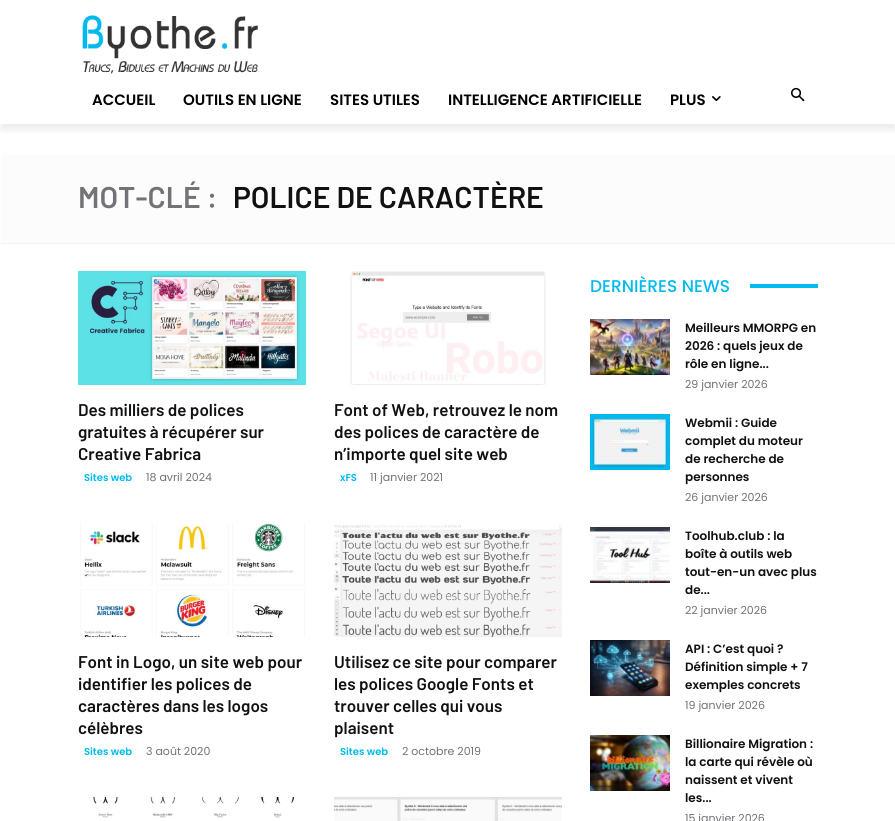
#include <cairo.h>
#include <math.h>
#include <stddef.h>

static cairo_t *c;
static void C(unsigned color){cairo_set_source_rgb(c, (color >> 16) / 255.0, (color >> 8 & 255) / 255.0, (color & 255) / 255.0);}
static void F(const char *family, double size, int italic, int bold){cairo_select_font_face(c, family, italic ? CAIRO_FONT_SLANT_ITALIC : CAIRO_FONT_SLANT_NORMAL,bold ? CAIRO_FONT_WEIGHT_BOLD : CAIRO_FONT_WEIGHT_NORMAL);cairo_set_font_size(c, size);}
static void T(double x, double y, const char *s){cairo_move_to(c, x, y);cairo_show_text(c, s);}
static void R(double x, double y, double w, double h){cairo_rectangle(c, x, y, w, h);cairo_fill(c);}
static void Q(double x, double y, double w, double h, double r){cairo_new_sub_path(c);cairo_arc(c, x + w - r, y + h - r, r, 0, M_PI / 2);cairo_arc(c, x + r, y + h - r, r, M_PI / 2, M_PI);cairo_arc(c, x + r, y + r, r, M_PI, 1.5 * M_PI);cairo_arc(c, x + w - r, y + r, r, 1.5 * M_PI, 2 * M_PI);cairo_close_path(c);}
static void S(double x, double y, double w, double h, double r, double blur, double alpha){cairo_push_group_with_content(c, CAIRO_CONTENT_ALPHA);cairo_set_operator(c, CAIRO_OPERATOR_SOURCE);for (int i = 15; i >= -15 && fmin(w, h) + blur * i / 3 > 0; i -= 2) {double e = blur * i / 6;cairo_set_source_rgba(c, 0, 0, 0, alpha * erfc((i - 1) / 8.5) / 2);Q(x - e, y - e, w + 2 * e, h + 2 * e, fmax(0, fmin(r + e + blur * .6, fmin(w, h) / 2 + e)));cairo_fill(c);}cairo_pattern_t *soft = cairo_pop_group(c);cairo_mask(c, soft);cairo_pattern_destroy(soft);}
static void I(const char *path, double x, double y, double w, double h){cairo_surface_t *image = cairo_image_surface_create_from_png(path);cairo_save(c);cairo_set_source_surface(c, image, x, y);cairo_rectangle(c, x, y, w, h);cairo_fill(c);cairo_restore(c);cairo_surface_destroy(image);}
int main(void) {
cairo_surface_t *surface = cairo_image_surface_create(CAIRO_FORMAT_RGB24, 895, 821);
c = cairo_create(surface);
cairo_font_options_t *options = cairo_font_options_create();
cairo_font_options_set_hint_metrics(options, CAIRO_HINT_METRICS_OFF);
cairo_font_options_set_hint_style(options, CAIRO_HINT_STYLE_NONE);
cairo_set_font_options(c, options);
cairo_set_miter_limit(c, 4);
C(0xffffff);
cairo_paint(c);
I("1.png",82,15,176,59);
cairo_save(c);
cairo_rectangle(c,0,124,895,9);
cairo_clip(c);
C(0x000000);
S(1,6,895,124,0,4,.08);
cairo_restore(c);
F("Poppins SemiBold",15,0,0);
C(0x000000);
T(92,105,"ACCUEIL");
T(183,105,"OUTILS EN LIGNE");
T(330,105,"SITES UTILES");
T(448,105,"INTELLIGENCE ARTIFICIELLE");
T(670,105,"PLUS");
I("2.png",712,96,9,6);
I("3.png",791,87,14,15);
C(0xfcfcfc);
R(1,155,894,88);
C(0xf2f2f2);
R(1,243,894,1);
F("Barlow SemiBold",30,0,0);
C(0x727277);
T(78,208,"MOT-CLÉ :");
C(0x111111);
T(233,208,"POLICE DE CARACTÈRE");
I("4.png",78,271,228,114);
F("Barlow SemiBold",17,0,0);
T(78,416,"Des milliers de polices");
T(78,438,"gratuites à récupérer sur");
T(78,460,"Creative Fabrica");
F("Poppins SemiBold",10,0,0);
C(0x00baef);
T(84,481,"Sites web");
F("Poppins",11,0,0);
C(0x727277);
T(146,481,"18 avril 2024");
I("5.png",350,271,196,114);
F("Barlow SemiBold",17,0,0);
C(0x111111);
T(334,416,"Font of Web, retrouvez le nom");
T(334,438,"des polices de caractère de");
T(334,460,"n’importe quel site web");
F("Poppins SemiBold",10,0,0);
C(0x00baef);
T(340,481,"xFS");
F("Poppins",11,0,0);
C(0x727277);
T(370,481,"11 janvier 2021");
I("6.png",80,523,225,114);
F("Barlow SemiBold",17,0,0);
C(0x111111);
T(78,668,"Font in Logo, un site web pour");
T(78,690,"identifier les polices de");
T(78,712,"caractères dans les logos");
T(78,734,"célèbres");
F("Poppins SemiBold",10,0,0);
C(0x00baef);
T(84,755,"Sites web");
F("Poppins",11,0,0);
C(0x727277);
T(146,755,"3 août 2020");
I("7.png",334,523,228,114);
F("Barlow SemiBold",17,0,0);
C(0x111111);
T(334,668,"Utilisez ce site pour comparer");
T(334,690,"les polices Google Fonts et");
T(334,712,"trouver celles qui vous");
T(334,734,"plaisent");
F("Poppins SemiBold",10,0,0);
C(0x00baef);
T(340,755,"Sites web");
F("Poppins",11,0,0);
C(0x727277);
T(402,755,"2 octobre 2019");
I("8.png",93,797,202,21);
I("9.png",334,797,228,24);
F("Poppins Medium",17,0,0);
C(0x00baef);
T(590,292,"DERNIÈRES NEWS");
R(750,284,68,4);
I("10.png",590,319,80,56);
F("Poppins SemiBold",12,0,0);
C(0x111111);
T(685,332,"Meilleurs MMORPG en");
T(685,350,"2026 : quels jeux de");
T(685,368,"rôle en ligne...");
F("Poppins",11,0,0);
C(0x727277);
T(685,388,"29 janvier 2026");
I("11.png",590,414,80,56);
F("Poppins SemiBold",12,0,0);
C(0x111111);
T(685,427,"Webmii : Guide");
T(685,445,"complet du moteur");
T(685,463,"de recherche de");
T(685,481,"personnes");
F("Poppins",11,0,0);
C(0x727277);
T(685,501,"26 janvier 2026");
I("12.png",590,527,80,56);
F("Poppins SemiBold",12,0,0);
C(0x111111);
T(685,540,"Toolhub.club : la");
T(685,558,"boîte à outils web");
T(685,576,"tout-en-un avec plus");
T(685,594,"de...");
F("Poppins",11,0,0);
C(0x727277);
T(685,614,"22 janvier 2026");
I("13.png",590,640,80,56);
F("Poppins SemiBold",12,0,0);
C(0x111111);
T(685,653,"API : C’est quoi ?");
T(685,671,"Définition simple + 7");
T(685,689,"exemples concrets");
F("Poppins",11,0,0);
C(0x727277);
T(685,709,"19 janvier 2026");
I("14.png",590,735,80,56);
F("Poppins SemiBold",12,0,0);
C(0x111111);
T(685,748,"Billionaire Migration :");
T(685,766,"la carte qui révèle où");
T(685,784,"naissent et vivent");
T(685,802,"les...");
F("Poppins",11,0,0);
C(0x727277);
T(685,822,"15 janvier 2026");
cairo_surface_write_to_png(surface, "o.png");
cairo_font_options_destroy(options);
cairo_destroy(c);
cairo_surface_destroy(surface);
return 0;
}
